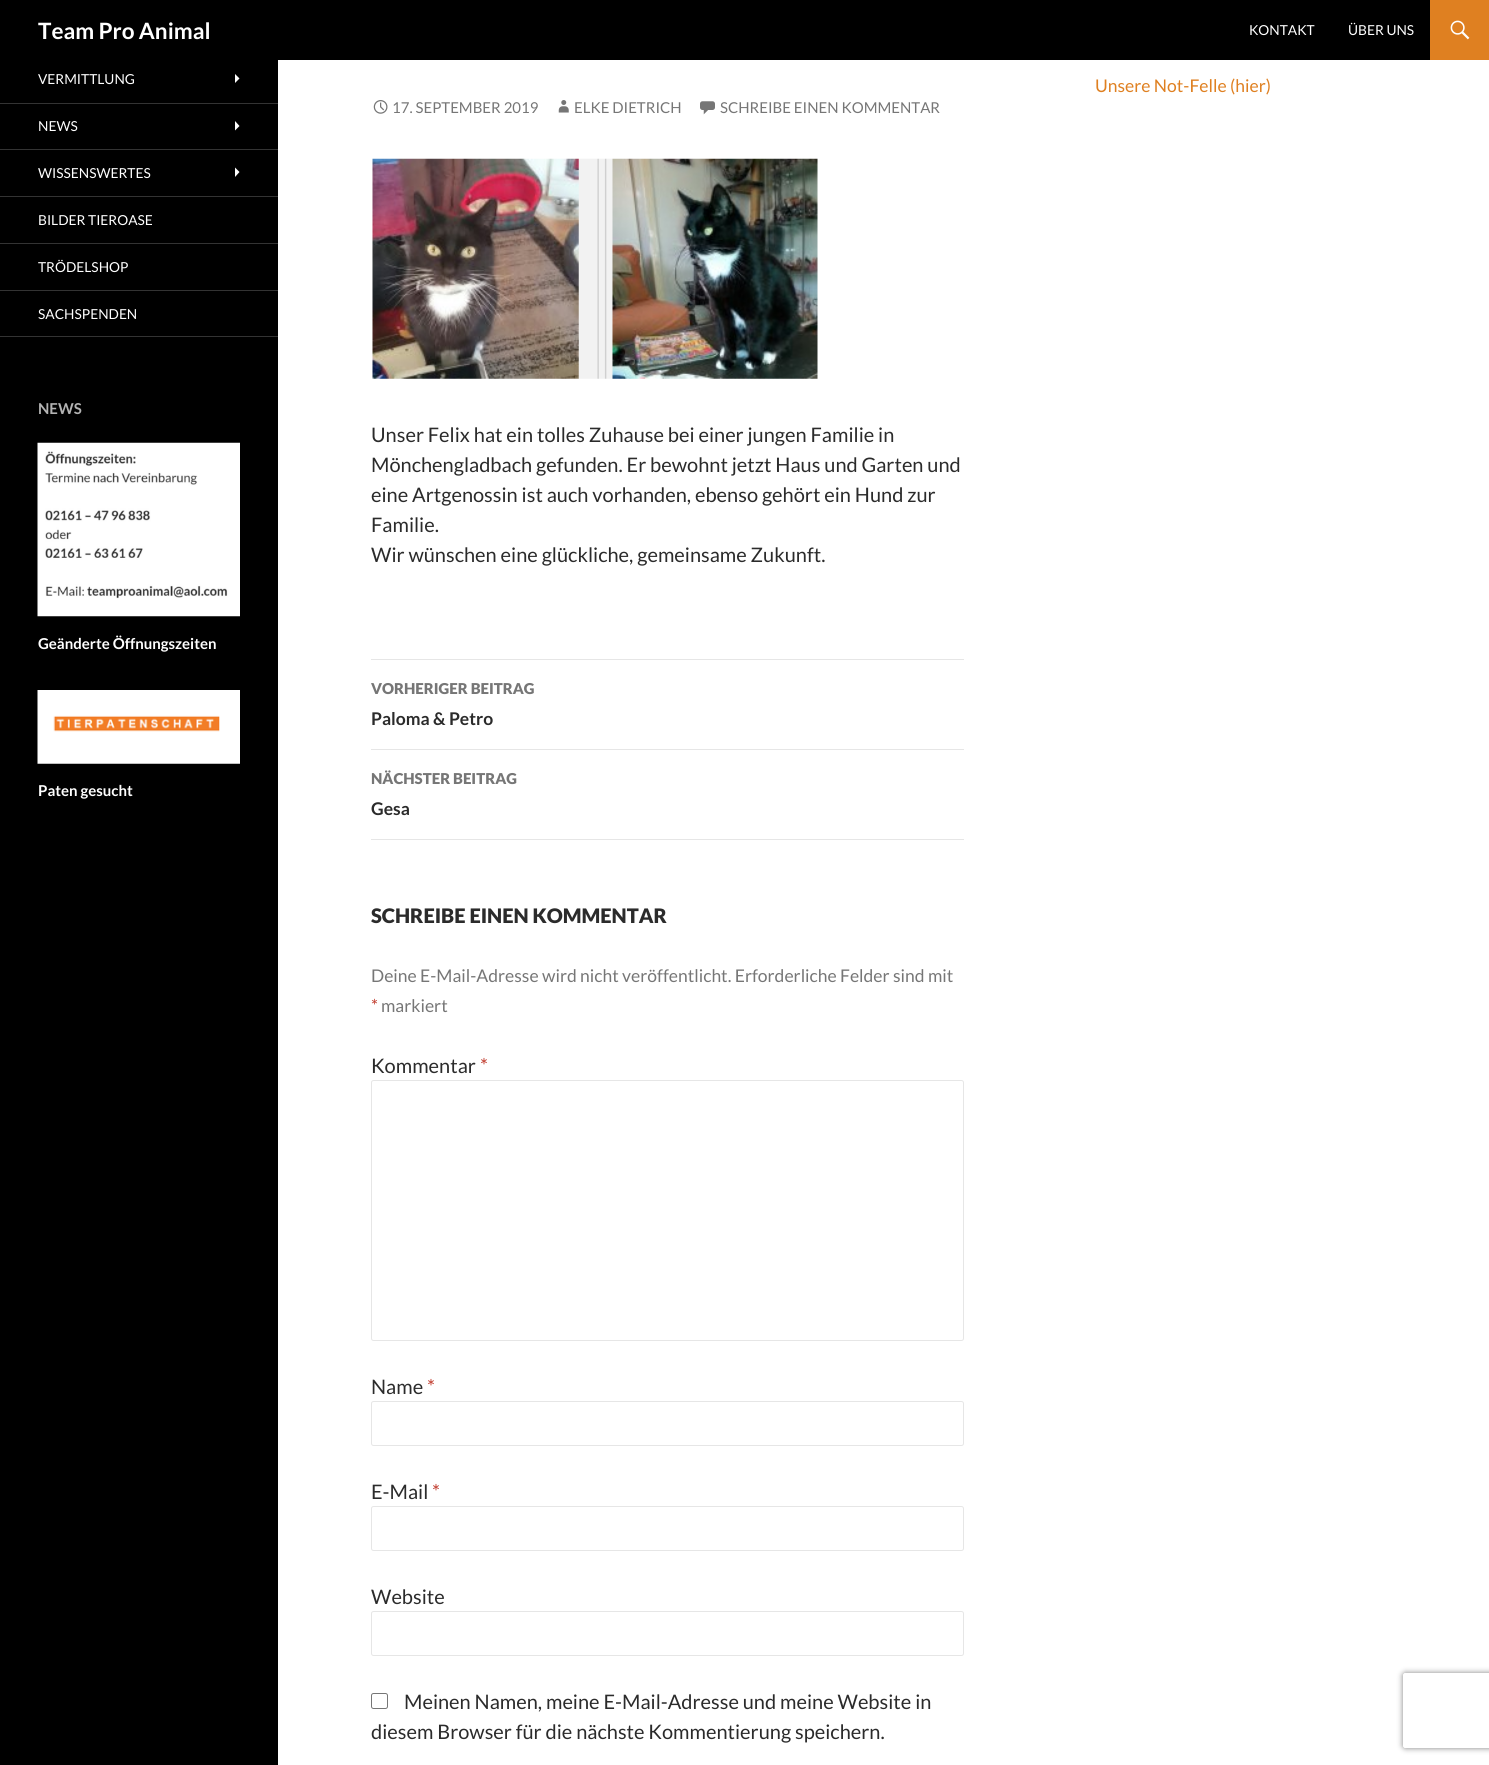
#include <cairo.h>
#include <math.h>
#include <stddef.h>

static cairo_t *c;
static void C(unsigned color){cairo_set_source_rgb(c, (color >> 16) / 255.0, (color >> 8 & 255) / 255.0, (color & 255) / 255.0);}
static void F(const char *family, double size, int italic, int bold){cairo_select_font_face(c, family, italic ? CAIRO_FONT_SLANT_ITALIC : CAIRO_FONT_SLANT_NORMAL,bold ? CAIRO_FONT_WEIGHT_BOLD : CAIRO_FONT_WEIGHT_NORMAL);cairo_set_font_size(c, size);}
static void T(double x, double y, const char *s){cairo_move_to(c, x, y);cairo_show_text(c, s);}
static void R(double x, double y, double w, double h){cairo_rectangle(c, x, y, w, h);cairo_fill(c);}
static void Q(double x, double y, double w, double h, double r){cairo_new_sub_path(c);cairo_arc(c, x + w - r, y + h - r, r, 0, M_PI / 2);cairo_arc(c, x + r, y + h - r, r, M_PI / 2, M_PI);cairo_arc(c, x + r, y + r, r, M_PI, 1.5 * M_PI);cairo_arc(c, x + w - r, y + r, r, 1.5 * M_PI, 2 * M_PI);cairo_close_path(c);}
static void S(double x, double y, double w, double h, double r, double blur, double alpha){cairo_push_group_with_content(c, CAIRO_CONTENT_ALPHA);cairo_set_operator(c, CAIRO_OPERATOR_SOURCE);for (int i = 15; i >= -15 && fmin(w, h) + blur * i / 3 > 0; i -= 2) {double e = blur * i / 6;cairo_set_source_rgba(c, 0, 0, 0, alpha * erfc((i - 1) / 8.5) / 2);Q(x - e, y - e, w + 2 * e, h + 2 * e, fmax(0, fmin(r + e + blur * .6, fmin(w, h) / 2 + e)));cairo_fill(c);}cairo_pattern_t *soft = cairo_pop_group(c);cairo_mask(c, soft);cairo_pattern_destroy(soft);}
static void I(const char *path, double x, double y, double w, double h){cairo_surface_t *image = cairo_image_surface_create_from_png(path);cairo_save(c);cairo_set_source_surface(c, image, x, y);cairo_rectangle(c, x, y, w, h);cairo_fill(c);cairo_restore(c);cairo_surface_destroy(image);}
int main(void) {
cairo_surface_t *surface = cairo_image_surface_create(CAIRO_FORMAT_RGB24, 1489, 1765);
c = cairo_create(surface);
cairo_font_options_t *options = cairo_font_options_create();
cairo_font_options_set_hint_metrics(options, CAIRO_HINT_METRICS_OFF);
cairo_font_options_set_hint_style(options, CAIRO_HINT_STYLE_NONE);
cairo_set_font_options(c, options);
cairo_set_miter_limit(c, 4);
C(0xffffff);
cairo_paint(c);
C(0x000000);
R(0,0,1430,60);
cairo_save(c);
cairo_rectangle(c,38,0,172,60);
cairo_clip(c);
F("Lato",22.5,0,1);
C(0xffffff);
T(38,39,"Team Pro Animal");
cairo_restore(c);
F("Lato",13.75,0,0);
C(0xffffff);
T(1249,35,"KONTAKT");
T(1348,35,"ÜBER UNS");
C(0xdf8021);
R(1430,0,59,60);
I("1.png",1450,20,20,20);
C(0x000000);
R(0,60,278,1705);
C(0x333333);
R(0,336,278,1);
C(0xffffff);
T(38,84,"VERMITTLUNG");
cairo_new_path(c);
cairo_move_to(c,235,83);
cairo_line_to(c,239.5,78.5);
cairo_line_to(c,235,74);
cairo_close_path(c);
cairo_fill(c);
C(0x333333);
R(0,103,278,1);
C(0xffffff);
T(38,131,"NEWS");
cairo_new_path(c);
cairo_move_to(c,235,130.5);
cairo_line_to(c,239.5,126);
cairo_line_to(c,235,121);
cairo_close_path(c);
cairo_fill(c);
C(0x333333);
R(0,149,278,1);
C(0xffffff);
T(38,178,"WISSENSWERTES");
cairo_new_path(c);
cairo_move_to(c,235,177);
cairo_line_to(c,239.5,172);
cairo_line_to(c,235,167.5);
cairo_close_path(c);
cairo_fill(c);
C(0x333333);
R(0,196,278,1);
C(0xffffff);
T(38,225,"BILDER TIEROASE");
C(0x333333);
R(0,243,278,1);
C(0xffffff);
T(38,272,"TRÖDELSHOP");
C(0x333333);
R(0,290,278,1);
C(0xffffff);
T(38,319,"SACHSPENDEN");
F("Lato",15,0,1);
C(0xb3b3b3);
T(38,414,"NEWS");
I("2.png",37,442,203,175);
C(0xffffff);
T(38,649,"Geänderte Öffnungszeiten");
I("3.png",37,690,203,74);
T(38,796,"Paten gesucht");
F("Lato",17.5,0,0);
C(0xdf8021);
T(1095,92,"Unsere Not-Felle (hier)");
I("4.png",373,100,15,14);
F("Lato",15,0,0);
C(0x767676);
T(392,113,"17. SEPTEMBER 2019");
I("5.png",558,100,11,13);
T(574,113,"ELKE DIETRICH");
I("6.png",700,101,15,14);
T(720,113,"SCHREIBE EINEN KOMMENTAR");
I("7.png",372,158,446,221);
F("Lato",20,0,0);
C(0x2b2b2b);
T(371,442,"Unser Felix hat ein tolles Zuhause bei einer jungen Familie in");
T(371,472,"Mönchengladbach gefunden. Er bewohnt jetzt Haus und Garten und");
T(371,502,"eine Artgenossin ist auch vorhanden, ebenso gehört ein Hund zur");
T(371,532,"Familie.");
T(371,562,"Wir wünschen eine glückliche, gemeinsame Zukunft.");
C(0xe6e6e6);
R(371,659,593,1);
R(371,749,593,1);
F("Lato Black",15,0,0);
C(0x767676);
T(371,694,"VORHERIGER BEITRAG");
F("Lato",17.5,0,1);
C(0x2b2b2b);
T(371,725,"Paloma & Petro");
C(0xe6e6e6);
R(371,839,593,1);
F("Lato Black",15,0,0);
C(0x767676);
T(371,784,"NÄCHSTER BEITRAG");
F("Lato",17.5,0,1);
C(0x2b2b2b);
T(371,815,"Gesa");
F("Lato Black",20,0,0);
T(371,923,"SCHREIBE EINEN KOMMENTAR");
F("Lato",17.5,0,0);
C(0x767676);
T(371,982,"Deine E-Mail-Adresse wird nicht veröffentlicht. Erforderliche Felder sind mit");
C(0xc0392b);
T(371,1012,"*");
C(0x767676);
T(381,1012,"markiert");
F("Lato",20,0,0);
C(0x2b2b2b);
T(371,1073,"Kommentar");
C(0xc0392b);
T(480,1073,"*");
Q(371.5,1080.5,592,260,2);
C(0xe6e6e6);
cairo_set_line_width(c,1);
cairo_stroke(c);
C(0x2b2b2b);
T(371,1394,"Name");
C(0xc0392b);
T(427,1394,"*");
Q(371.5,1401.5,592,44,2);
C(0xe6e6e6);
cairo_stroke(c);
C(0x2b2b2b);
T(371,1499,"E-Mail");
C(0xc0392b);
T(432,1499,"*");
Q(371.5,1506.5,592,44,2);
C(0xe6e6e6);
cairo_stroke(c);
C(0x2b2b2b);
T(371,1604,"Website");
Q(371.5,1611.5,592,44,2);
C(0xe6e6e6);
cairo_stroke(c);
Q(371.5,1693.5,16,15,2);
C(0x767676);
cairo_stroke(c);
C(0x2b2b2b);
T(404,1709,"Meinen Namen, meine E-Mail-Adresse und meine Website in");
T(371,1739,"diesem Browser für die nächste Kommentierung speichern.");
cairo_save(c);
cairo_set_fill_rule(c,CAIRO_FILL_RULE_EVEN_ODD);
cairo_new_path(c);
cairo_move_to(c,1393,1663);
cairo_line_to(c,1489,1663);
cairo_line_to(c,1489,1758);
cairo_line_to(c,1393,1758);
cairo_close_path(c);
cairo_move_to(c,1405.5,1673);
cairo_line_to(c,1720.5,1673);
cairo_curve_to(c,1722,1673,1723,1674,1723,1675.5);
cairo_line_to(c,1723,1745.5);
cairo_curve_to(c,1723,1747,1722,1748,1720.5,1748);
cairo_line_to(c,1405.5,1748);
cairo_curve_to(c,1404,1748,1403,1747,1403,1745.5);
cairo_line_to(c,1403,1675.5);
cairo_curve_to(c,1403,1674,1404,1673,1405.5,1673);
cairo_close_path(c);
cairo_clip(c);
C(0x808080);
S(1403,1673,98,75,2.5,3,1);
cairo_restore(c);
cairo_surface_write_to_png(surface, "o.png");
cairo_font_options_destroy(options);
cairo_destroy(c);
cairo_surface_destroy(surface);
return 0;
}
